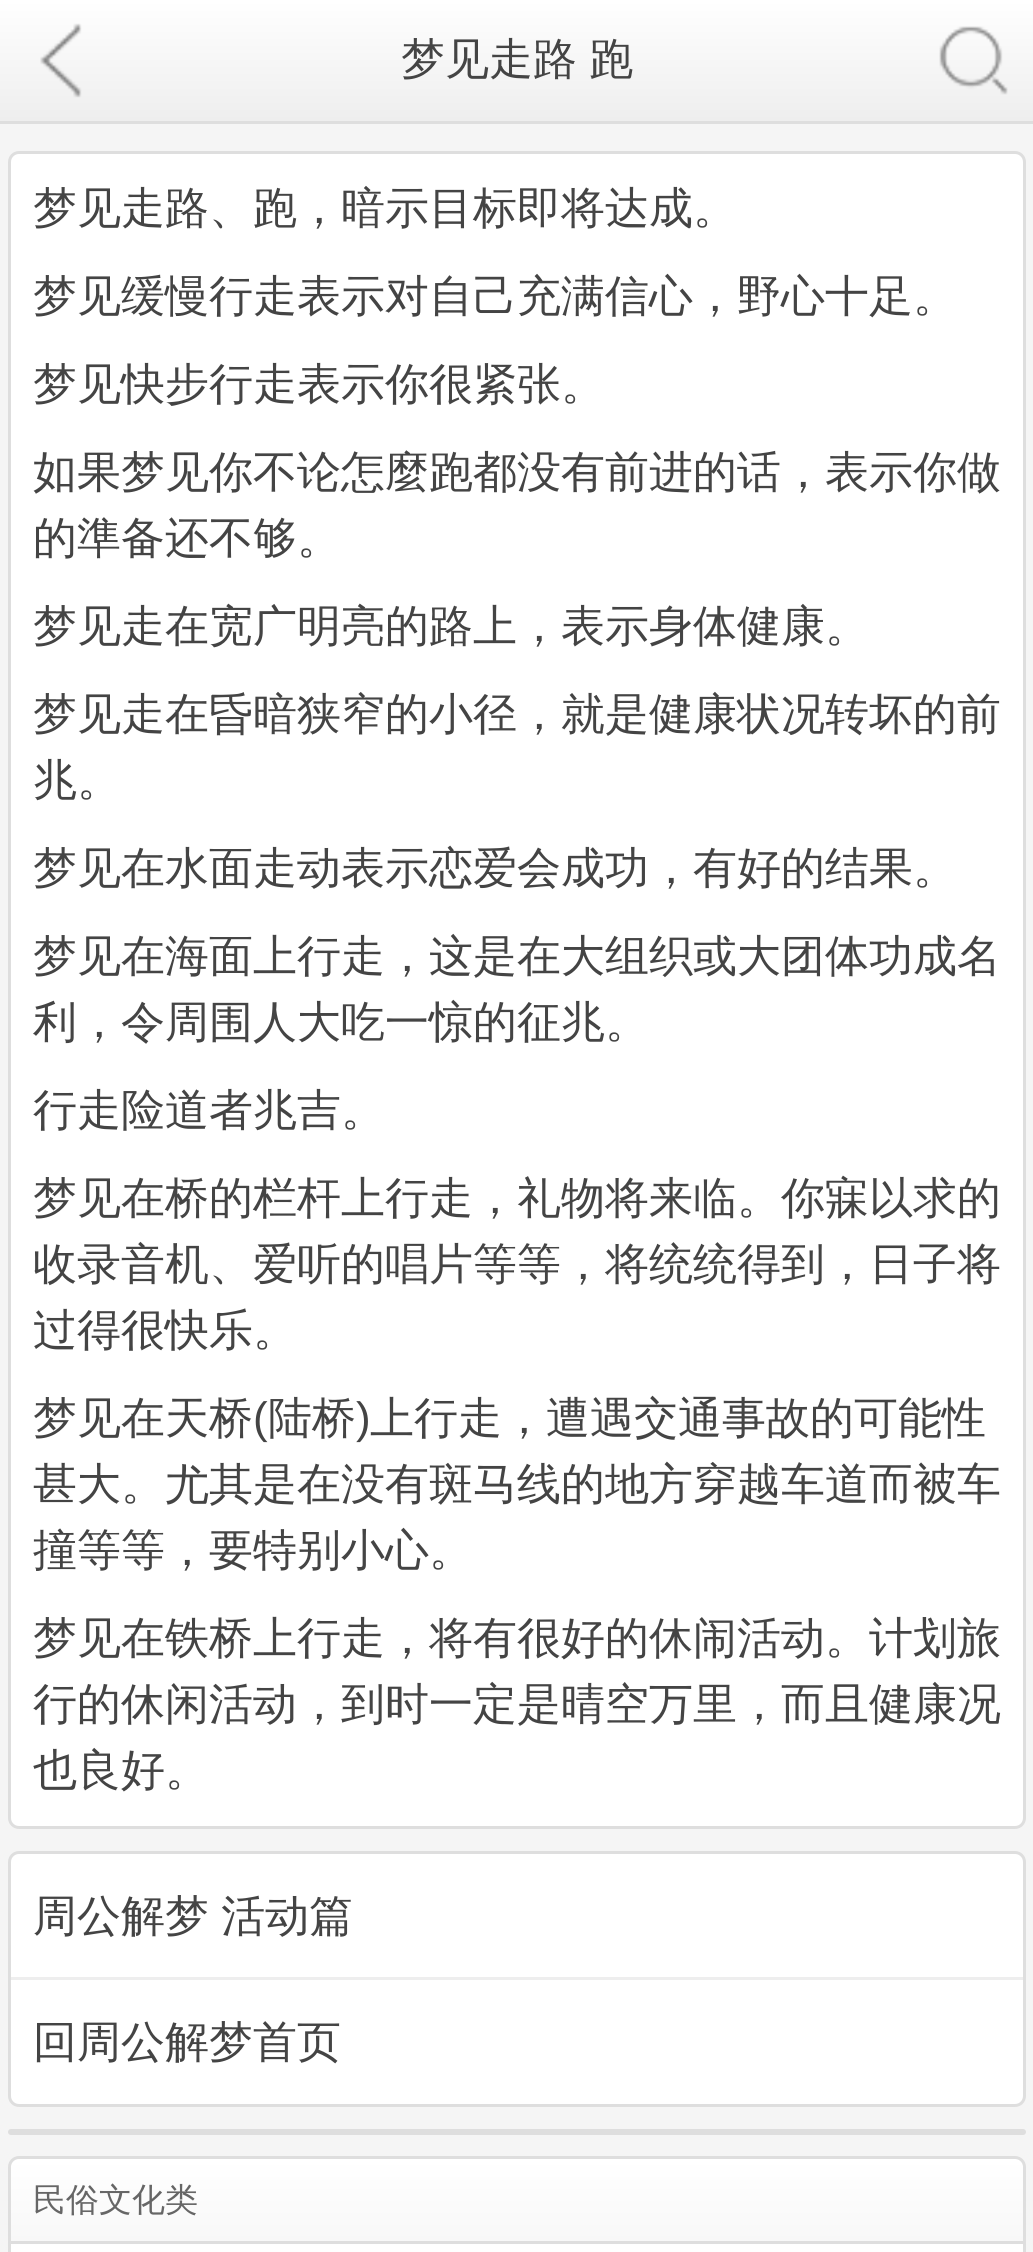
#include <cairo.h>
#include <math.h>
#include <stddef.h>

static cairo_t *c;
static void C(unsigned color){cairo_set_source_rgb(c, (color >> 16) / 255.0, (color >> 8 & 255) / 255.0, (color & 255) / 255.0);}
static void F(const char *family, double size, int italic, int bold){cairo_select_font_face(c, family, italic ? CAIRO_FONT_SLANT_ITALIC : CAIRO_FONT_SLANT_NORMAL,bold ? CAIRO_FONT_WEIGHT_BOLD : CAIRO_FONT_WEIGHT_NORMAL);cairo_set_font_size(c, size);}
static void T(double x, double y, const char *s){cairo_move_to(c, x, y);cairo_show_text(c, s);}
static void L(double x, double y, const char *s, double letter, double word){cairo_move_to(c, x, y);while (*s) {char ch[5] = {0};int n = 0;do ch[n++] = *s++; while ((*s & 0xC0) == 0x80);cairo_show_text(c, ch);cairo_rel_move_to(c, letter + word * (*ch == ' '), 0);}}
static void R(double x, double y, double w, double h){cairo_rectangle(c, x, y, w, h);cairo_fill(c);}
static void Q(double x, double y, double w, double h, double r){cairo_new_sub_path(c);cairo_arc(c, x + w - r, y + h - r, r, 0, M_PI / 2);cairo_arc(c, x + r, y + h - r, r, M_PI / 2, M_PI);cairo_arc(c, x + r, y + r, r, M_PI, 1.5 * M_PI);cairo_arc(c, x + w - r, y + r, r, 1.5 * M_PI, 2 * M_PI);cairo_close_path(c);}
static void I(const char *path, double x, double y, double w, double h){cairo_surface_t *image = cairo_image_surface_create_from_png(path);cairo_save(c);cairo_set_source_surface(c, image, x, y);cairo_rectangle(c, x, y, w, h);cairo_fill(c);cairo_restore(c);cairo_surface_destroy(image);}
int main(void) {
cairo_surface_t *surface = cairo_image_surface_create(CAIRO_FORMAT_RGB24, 1033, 2252);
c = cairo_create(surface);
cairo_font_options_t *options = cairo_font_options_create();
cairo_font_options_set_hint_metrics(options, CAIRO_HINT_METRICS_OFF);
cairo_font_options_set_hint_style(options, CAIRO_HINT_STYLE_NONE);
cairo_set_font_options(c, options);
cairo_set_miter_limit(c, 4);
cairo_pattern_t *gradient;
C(0xf5f5f5);
cairo_paint(c);
gradient = cairo_pattern_create_linear(0,0,0,121);
cairo_pattern_add_color_stop_rgba(gradient,0,1,1,1,1);
cairo_pattern_add_color_stop_rgba(gradient,1,0.933,0.933,0.933,1);
cairo_set_source(c,gradient);
cairo_pattern_destroy(gradient);
R(0,0,1033,121);
C(0xdedede);
R(0,121,1033,3);
I("1.png",40,23,42,75);
F("WenQuanYi Zen Hei Medium",44,0,0);
C(0x444444);
L(401,74,"梦见走路 跑",0,-1);
I("2.png",939,26,69,69);
C(0xffffff);
Q(9.5,152.5,1015,1675,9.5);
cairo_fill_preserve(c);
C(0xdedede);
cairo_set_line_width(c,3);
cairo_stroke(c);
C(0x444444);
T(33,223,"梦见走路、跑，暗示目标即将达成。");
T(33,311,"梦见缓慢行走表示对自己充满信心，野心十足。");
T(33,399,"梦见快步行走表示你很紧张。");
T(33,487,"如果梦见你不论怎麼跑都没有前进的话，表示你做");
T(33,553,"的準备还不够。");
T(33,641,"梦见走在宽广明亮的路上，表示身体健康。");
T(33,729,"梦见走在昏暗狭窄的小径，就是健康状况转坏的前");
T(33,795,"兆。");
T(33,883,"梦见在水面走动表示恋爱会成功，有好的结果。");
T(33,971,"梦见在海面上行走，这是在大组织或大团体功成名");
T(33,1037,"利，令周围人大吃一惊的征兆。");
T(33,1125,"行走险道者兆吉。");
T(33,1213,"梦见在桥的栏杆上行走，礼物将来临。你寐以求的");
T(33,1279,"收录音机、爱听的唱片等等，将统统得到，日子将");
T(33,1345,"过得很快乐。");
T(33,1433,"梦见在天桥");
F("Liberation Sans",44,0,0);
T(253,1433,"(");
F("WenQuanYi Zen Hei Medium",44,0,0);
T(268,1433,"陆桥");
F("Liberation Sans",44,0,0);
T(356,1433,")");
F("WenQuanYi Zen Hei Medium",44,0,0);
T(370,1433,"上行走，遭遇交通事故的可能性");
T(33,1499,"甚大。尤其是在没有斑马线的地方穿越车道而被车");
T(33,1565,"撞等等，要特别小心。");
T(33,1653,"梦见在铁桥上行走，将有很好的休闹活动。计划旅");
T(33,1719,"行的休闲活动，到时一定是晴空万里，而且健康况");
T(33,1785,"也良好。");
C(0xffffff);
Q(9.5,1852.5,1015,253,9.5);
cairo_fill_preserve(c);
C(0xdedede);
cairo_stroke(c);
C(0x444444);
L(33,1931,"周公解梦 活动篇",0,-1);
C(0xeeeeee);
R(11,1977,1012,3);
C(0x444444);
T(33,2057,"回周公解梦首页");
C(0xdedede);
Q(8,2129,1018,6,3);
cairo_fill(c);
C(0xffffff);
Q(9.5,2157.5,1015,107,9.5);
cairo_fill_preserve(c);
C(0xdedede);
cairo_stroke(c);
gradient = cairo_pattern_create_linear(11,2159,11,2241);
cairo_pattern_add_color_stop_rgba(gradient,0,1,1,1,1);
cairo_pattern_add_color_stop_rgba(gradient,1,0.973,0.973,0.973,1);
cairo_set_source(c,gradient);
cairo_pattern_destroy(gradient);
cairo_new_path(c);
cairo_move_to(c,22,2159);
cairo_line_to(c,1012,2159);
cairo_curve_to(c,1018,2159,1023,2164,1023,2170);
cairo_line_to(c,1023,2241);
cairo_line_to(c,11,2241);
cairo_line_to(c,11,2170);
cairo_curve_to(c,11,2164,16,2159,22,2159);
cairo_close_path(c);
cairo_fill(c);
C(0xdedede);
R(11,2241,1012,3);
F("WenQuanYi Zen Hei Medium",33,0,0);
C(0x666666);
T(33,2211,"民俗文化类");
cairo_surface_write_to_png(surface, "o.png");
cairo_font_options_destroy(options);
cairo_destroy(c);
cairo_surface_destroy(surface);
return 0;
}
